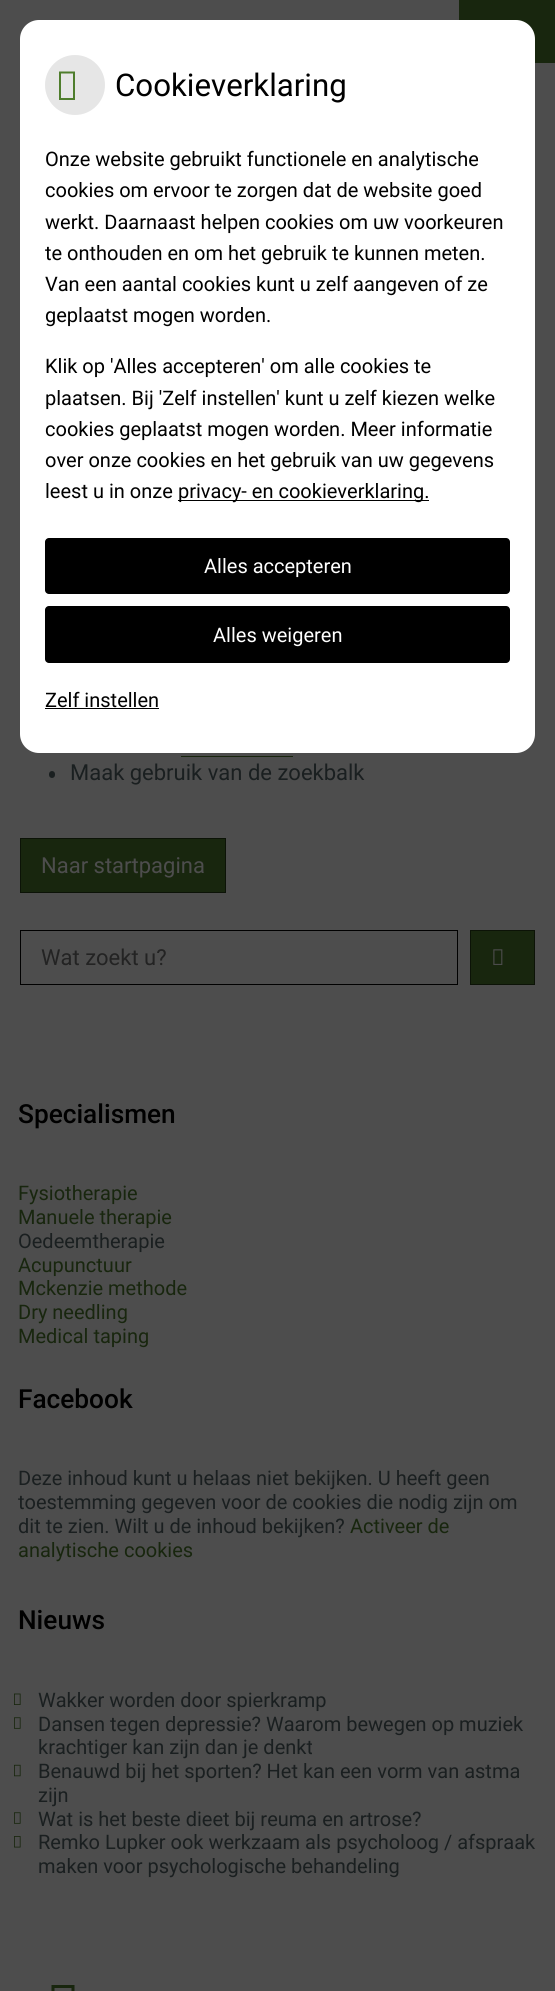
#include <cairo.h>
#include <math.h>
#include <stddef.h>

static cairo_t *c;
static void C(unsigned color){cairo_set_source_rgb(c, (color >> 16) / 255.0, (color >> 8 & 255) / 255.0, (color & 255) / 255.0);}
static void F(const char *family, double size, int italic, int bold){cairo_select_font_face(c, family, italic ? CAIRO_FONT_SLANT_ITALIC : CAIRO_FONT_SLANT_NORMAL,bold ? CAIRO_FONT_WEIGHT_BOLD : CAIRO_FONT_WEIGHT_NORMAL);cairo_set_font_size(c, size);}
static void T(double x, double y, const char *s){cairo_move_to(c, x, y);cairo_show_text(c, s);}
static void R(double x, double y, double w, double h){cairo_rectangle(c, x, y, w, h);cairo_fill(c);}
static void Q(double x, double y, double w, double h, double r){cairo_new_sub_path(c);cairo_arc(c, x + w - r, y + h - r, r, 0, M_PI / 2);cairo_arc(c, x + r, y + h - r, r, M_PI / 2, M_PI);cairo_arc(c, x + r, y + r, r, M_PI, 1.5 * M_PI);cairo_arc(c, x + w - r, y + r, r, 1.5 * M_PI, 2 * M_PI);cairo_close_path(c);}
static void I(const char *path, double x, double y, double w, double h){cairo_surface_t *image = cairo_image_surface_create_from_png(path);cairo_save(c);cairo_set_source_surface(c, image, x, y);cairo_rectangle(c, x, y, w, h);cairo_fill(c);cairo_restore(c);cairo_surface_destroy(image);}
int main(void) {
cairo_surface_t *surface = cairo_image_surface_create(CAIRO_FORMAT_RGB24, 555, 1991);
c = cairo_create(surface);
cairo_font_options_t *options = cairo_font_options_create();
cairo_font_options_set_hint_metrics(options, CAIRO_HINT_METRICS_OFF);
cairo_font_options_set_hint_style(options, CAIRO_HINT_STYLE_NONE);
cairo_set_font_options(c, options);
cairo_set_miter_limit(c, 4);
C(0x4d4d4d);
cairo_paint(c);
C(0x18260e);
R(459,0,96,63);
C(0xffffff);
Q(20,20,515,733,19);
cairo_fill(c);
C(0xe6e6e6);
cairo_arc(c,75,85,30,0,2 * M_PI);
cairo_fill(c);
C(0x4f7e2d);
cairo_new_path(c);
cairo_move_to(c,59,100);
cairo_line_to(c,59,71.5);
cairo_line_to(c,75,71.5);
cairo_line_to(c,75,100);
cairo_close_path(c);
cairo_move_to(c,61,98);
cairo_line_to(c,73,98);
cairo_line_to(c,73,73.5);
cairo_line_to(c,61,73.5);
cairo_close_path(c);
cairo_fill(c);
F("Roboto",31.25,0,0);
C(0x000000);
T(115,96,"Cookieverklaring");
F("Roboto",20,0,0);
T(45,166,"Onze website gebruikt functionele en analytische");
T(45,197,"cookies om ervoor te zorgen dat de website goed");
T(45,229,"werkt. Daarnaast helpen cookies om uw voorkeuren");
T(45,260,"te onthouden en om het gebruik te kunnen meten.");
T(45,291,"Van een aantal cookies kunt u zelf aangeven of ze");
T(45,322,"geplaatst mogen worden.");
T(45,373,"Klik op 'Alles accepteren' om alle cookies te");
T(45,405,"plaatsen. Bij 'Zelf instellen' kunt u zelf kiezen welke");
T(45,436,"cookies geplaatst mogen worden. Meer informatie");
T(45,467,"over onze cookies en het gebruik van uw gegevens");
T(45,498,"leest u in onze");
R(178,500,251,1);
T(178,498,"privacy- en cookieverklaring.");
Q(45,538,465,56,4);
cairo_fill(c);
C(0xffffff);
T(204,573,"Alles accepteren");
C(0x000000);
Q(45,606,465,57,4);
cairo_fill(c);
C(0xffffff);
T(213,642,"Alles weigeren");
C(0x000000);
T(45,707,"Zelf instellen");
R(45,708,114,1);
C(0x18260e);
R(181,756,112,1);
C(0x1a1f20);
Q(49,771,6,7,3);
cairo_fill(c);
F("Roboto",22,0,0);
T(70,780,"Maak gebruik van de zoekbalk");
C(0x18260e);
cairo_rectangle(c,20.5,838.5,205,54);
cairo_fill_preserve(c);
C(0x0c1307);
cairo_set_line_width(c,1);
cairo_stroke(c);
C(0x4d4d4d);
T(41,873,"Naar startpagina");
cairo_rectangle(c,20.5,930.5,437,54);
C(0x000000);
cairo_stroke(c);
C(0x232323);
T(41,965,"Wat zoekt u?");
C(0x18260e);
cairo_rectangle(c,470.5,930.5,64,54);
cairo_fill_preserve(c);
C(0x0c1307);
cairo_stroke(c);
I("1.png",493,949,10,16);
F("Roboto Medium",26.25,0,0);
C(0x000000);
T(18,1123,"Specialismen");
F("Roboto",20,0,0);
C(0x18260e);
T(18,1200,"Fysiotherapie");
T(18,1224,"Manuele therapie");
C(0x1a1f20);
T(18,1248,"Oedeemtherapie");
C(0x18260e);
T(18,1272,"Acupunctuur");
T(18,1295,"Mckenzie methode");
T(18,1319,"Dry needling");
T(18,1343,"Medical taping");
F("Roboto Medium",26.25,0,0);
C(0x000000);
T(18,1408,"Facebook");
F("Roboto",20,0,0);
C(0x1a1f20);
T(18,1485,"Deze inhoud kunt u helaas niet bekijken. U heeft geen");
T(18,1509,"toestemming gegeven voor de cookies die nodig zijn om");
T(18,1533,"dit te zien. Wilt u de inhoud bekijken?");
C(0x18260e);
T(350,1533,"Activeer de");
T(18,1557,"analytische cookies");
F("Roboto Medium",26.25,0,0);
C(0x000000);
T(18,1629,"Nieuws");
I("2.png",14,1693,7,12);
F("Roboto",20,0,0);
C(0x1a1f20);
T(38,1707,"Wakker worden door spierkramp");
I("3.png",14,1717,7,12);
T(38,1731,"Dansen tegen depressie? Waarom bewegen op muziek");
T(38,1754,"krachtiger kan zijn dan je denkt");
I("4.png",14,1764,7,13);
T(38,1778,"Benauwd bij het sporten? Het kan een vorm van astma");
T(38,1802,"zijn");
I("3.png",14,1812,7,12);
T(38,1826,"Wat is het beste dieet bij reuma en artrose?");
I("5.png",14,1836,7,12);
T(38,1849,"Remko Lupker ook werkzaam als psycholoog / afspraak");
T(38,1873,"maken voor psychologische behandeling");
C(0x18260e);
cairo_new_path(c);
cairo_move_to(c,51.5,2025);
cairo_line_to(c,51.5,1985);
cairo_line_to(c,74.5,1985);
cairo_line_to(c,74.5,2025);
cairo_close_path(c);
cairo_move_to(c,54.5,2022);
cairo_line_to(c,71.5,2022);
cairo_line_to(c,71.5,1988);
cairo_line_to(c,54.5,1988);
cairo_close_path(c);
cairo_fill(c);
cairo_surface_write_to_png(surface, "o.png");
cairo_font_options_destroy(options);
cairo_destroy(c);
cairo_surface_destroy(surface);
return 0;
}
